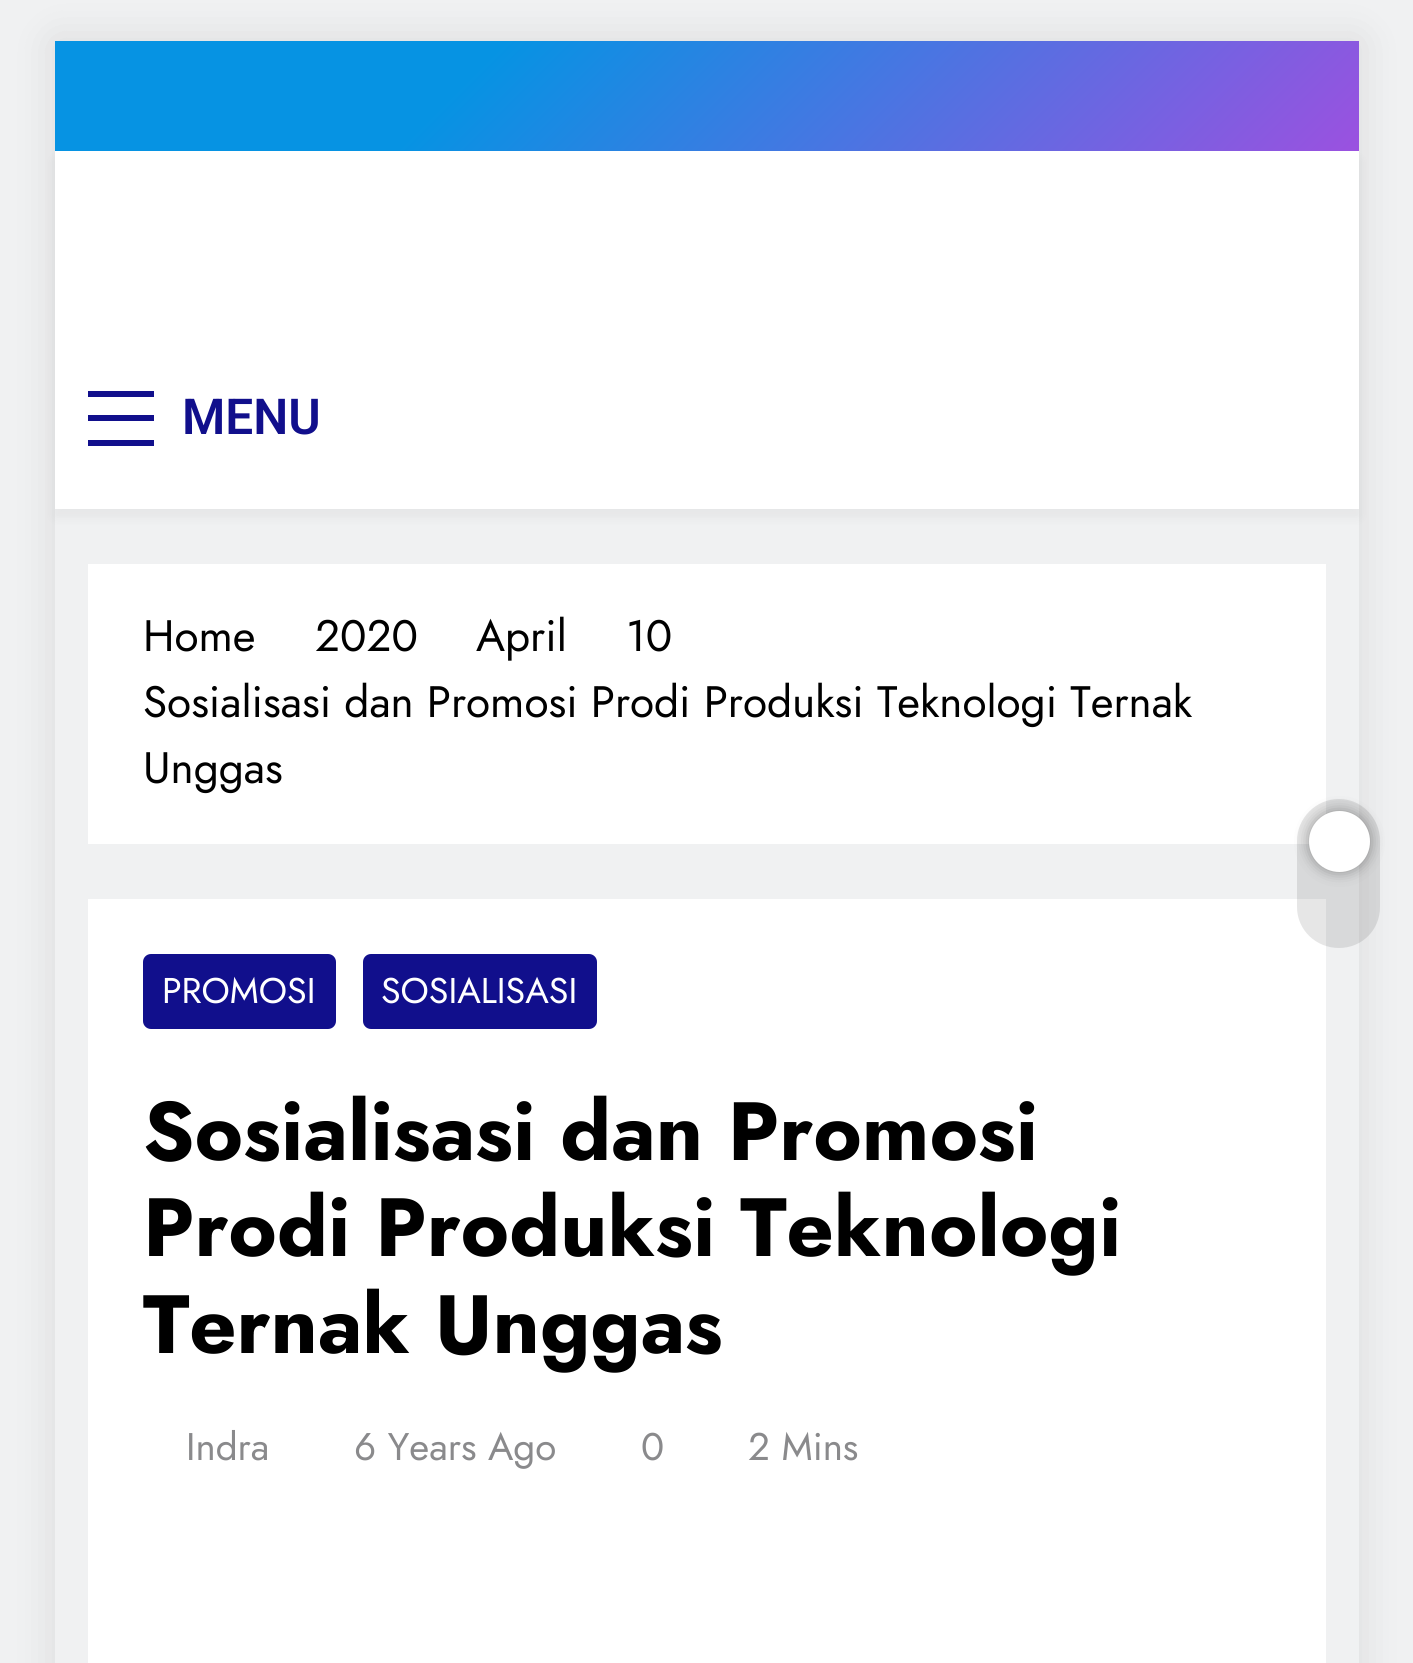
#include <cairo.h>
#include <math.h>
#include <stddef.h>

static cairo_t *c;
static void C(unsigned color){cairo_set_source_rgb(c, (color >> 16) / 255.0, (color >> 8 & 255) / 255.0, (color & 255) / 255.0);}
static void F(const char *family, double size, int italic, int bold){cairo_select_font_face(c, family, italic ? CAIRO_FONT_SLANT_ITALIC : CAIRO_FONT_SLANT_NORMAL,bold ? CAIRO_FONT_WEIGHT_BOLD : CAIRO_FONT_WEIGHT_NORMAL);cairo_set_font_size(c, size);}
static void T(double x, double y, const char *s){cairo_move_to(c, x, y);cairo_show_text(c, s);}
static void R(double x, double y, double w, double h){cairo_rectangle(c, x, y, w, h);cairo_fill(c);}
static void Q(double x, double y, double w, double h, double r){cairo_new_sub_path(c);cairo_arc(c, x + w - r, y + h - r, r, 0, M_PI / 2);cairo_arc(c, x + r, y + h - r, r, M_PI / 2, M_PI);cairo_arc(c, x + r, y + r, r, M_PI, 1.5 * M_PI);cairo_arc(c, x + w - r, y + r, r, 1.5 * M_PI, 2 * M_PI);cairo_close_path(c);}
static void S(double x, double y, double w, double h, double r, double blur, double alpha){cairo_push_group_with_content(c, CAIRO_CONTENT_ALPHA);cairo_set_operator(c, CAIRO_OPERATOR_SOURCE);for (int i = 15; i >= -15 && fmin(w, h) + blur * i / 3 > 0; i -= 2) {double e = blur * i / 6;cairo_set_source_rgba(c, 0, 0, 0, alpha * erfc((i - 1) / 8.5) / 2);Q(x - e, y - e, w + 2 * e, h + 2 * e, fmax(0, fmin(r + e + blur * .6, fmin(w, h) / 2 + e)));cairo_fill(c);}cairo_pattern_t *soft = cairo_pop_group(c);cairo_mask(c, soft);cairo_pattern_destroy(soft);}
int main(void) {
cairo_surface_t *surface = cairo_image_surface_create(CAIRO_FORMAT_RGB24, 1413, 1663);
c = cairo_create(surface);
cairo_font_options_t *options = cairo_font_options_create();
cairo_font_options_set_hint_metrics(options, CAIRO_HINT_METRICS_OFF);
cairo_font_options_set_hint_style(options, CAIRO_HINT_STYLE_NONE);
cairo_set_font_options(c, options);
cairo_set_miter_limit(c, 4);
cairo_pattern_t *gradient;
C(0xf0f1f2);
cairo_paint(c);
cairo_save(c);
cairo_set_fill_rule(c,CAIRO_FILL_RULE_EVEN_ODD);
cairo_new_path(c);
cairo_move_to(c,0,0);
cairo_line_to(c,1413,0);
cairo_line_to(c,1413,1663);
cairo_line_to(c,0,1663);
cairo_close_path(c);
cairo_move_to(c,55,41);
cairo_line_to(c,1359,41);
cairo_line_to(c,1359,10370);
cairo_line_to(c,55,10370);
cairo_close_path(c);
cairo_clip(c);
C(0x000000);
S(55,41,1304,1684,0,20.5,.1);
cairo_restore(c);
gradient = cairo_pattern_create_linear(353,-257,1060,450);
cairo_pattern_add_color_stop_rgba(gradient,.32,0.024,0.576,0.89,1);
cairo_pattern_add_color_stop_rgba(gradient,1,0.608,0.318,0.878,1);
cairo_set_source(c,gradient);
cairo_pattern_destroy(gradient);
R(55,41,1304,110);
C(0x000000);
S(55,160,1304,357,0,5.5,.05);
C(0xffffff);
R(55,151,1304,358);
C(0x110f8c);
R(88,391,66,6);
R(88,415,66,6);
R(88,440,66,6);
F("Roboto SemiBold",49.5,0,0);
T(182,434,"MENU");
C(0xffffff);
R(88,564,1238,280);
R(88,899,1238,764);
cairo_set_source_rgba(c,0,0,0,0.1);
cairo_new_path(c);
cairo_move_to(c,1380,841);
cairo_line_to(c,1380,907);
cairo_curve_to(c,1380,930,1362,948,1339,948);
cairo_curve_to(c,1316,948,1297,930,1297,907);
cairo_line_to(c,1297,841);
cairo_curve_to(c,1297,818,1316,799,1339,799);
cairo_curve_to(c,1362,799,1380,818,1380,841);
cairo_close_path(c);
cairo_fill(c);
C(0x000000);
S(1309,811,61,61,30.5,7,.35);
C(0xffffff);
cairo_arc(c,1339.5,841.5,30.5,0,2 * M_PI);
cairo_fill(c);
F("Jost",44,0,0);
C(0x000000);
T(143,651,"Home");
T(315,651,"2020");
T(476,651,"April");
T(626,651,"10");
T(143,717,"Sosialisasi dan Promosi Prodi Produksi Teknologi Ternak");
T(143,783,"Unggas");
C(0x110f8c);
Q(143,954,193,75,8);
cairo_fill(c);
F("Jost",35.75,0,0);
C(0xffffff);
T(162,1003,"PROMOSI");
C(0x110f8c);
Q(363,954,234,75,8);
cairo_fill(c);
C(0xffffff);
T(381,1003,"SOSIALISASI");
F("Jost",82.5,0,1);
C(0x000000);
T(143,1160,"Sosialisasi dan Promosi");
T(143,1256,"Prodi Produksi Teknologi");
T(143,1353,"Ternak Unggas");
F("Jost",38.5,0,0);
C(0x8a8a8c);
T(186,1460,"Indra");
T(354,1460,"6 Years Ago");
T(641,1460,"0");
T(748,1460,"2 Mins");
cairo_surface_write_to_png(surface, "o.png");
cairo_font_options_destroy(options);
cairo_destroy(c);
cairo_surface_destroy(surface);
return 0;
}
